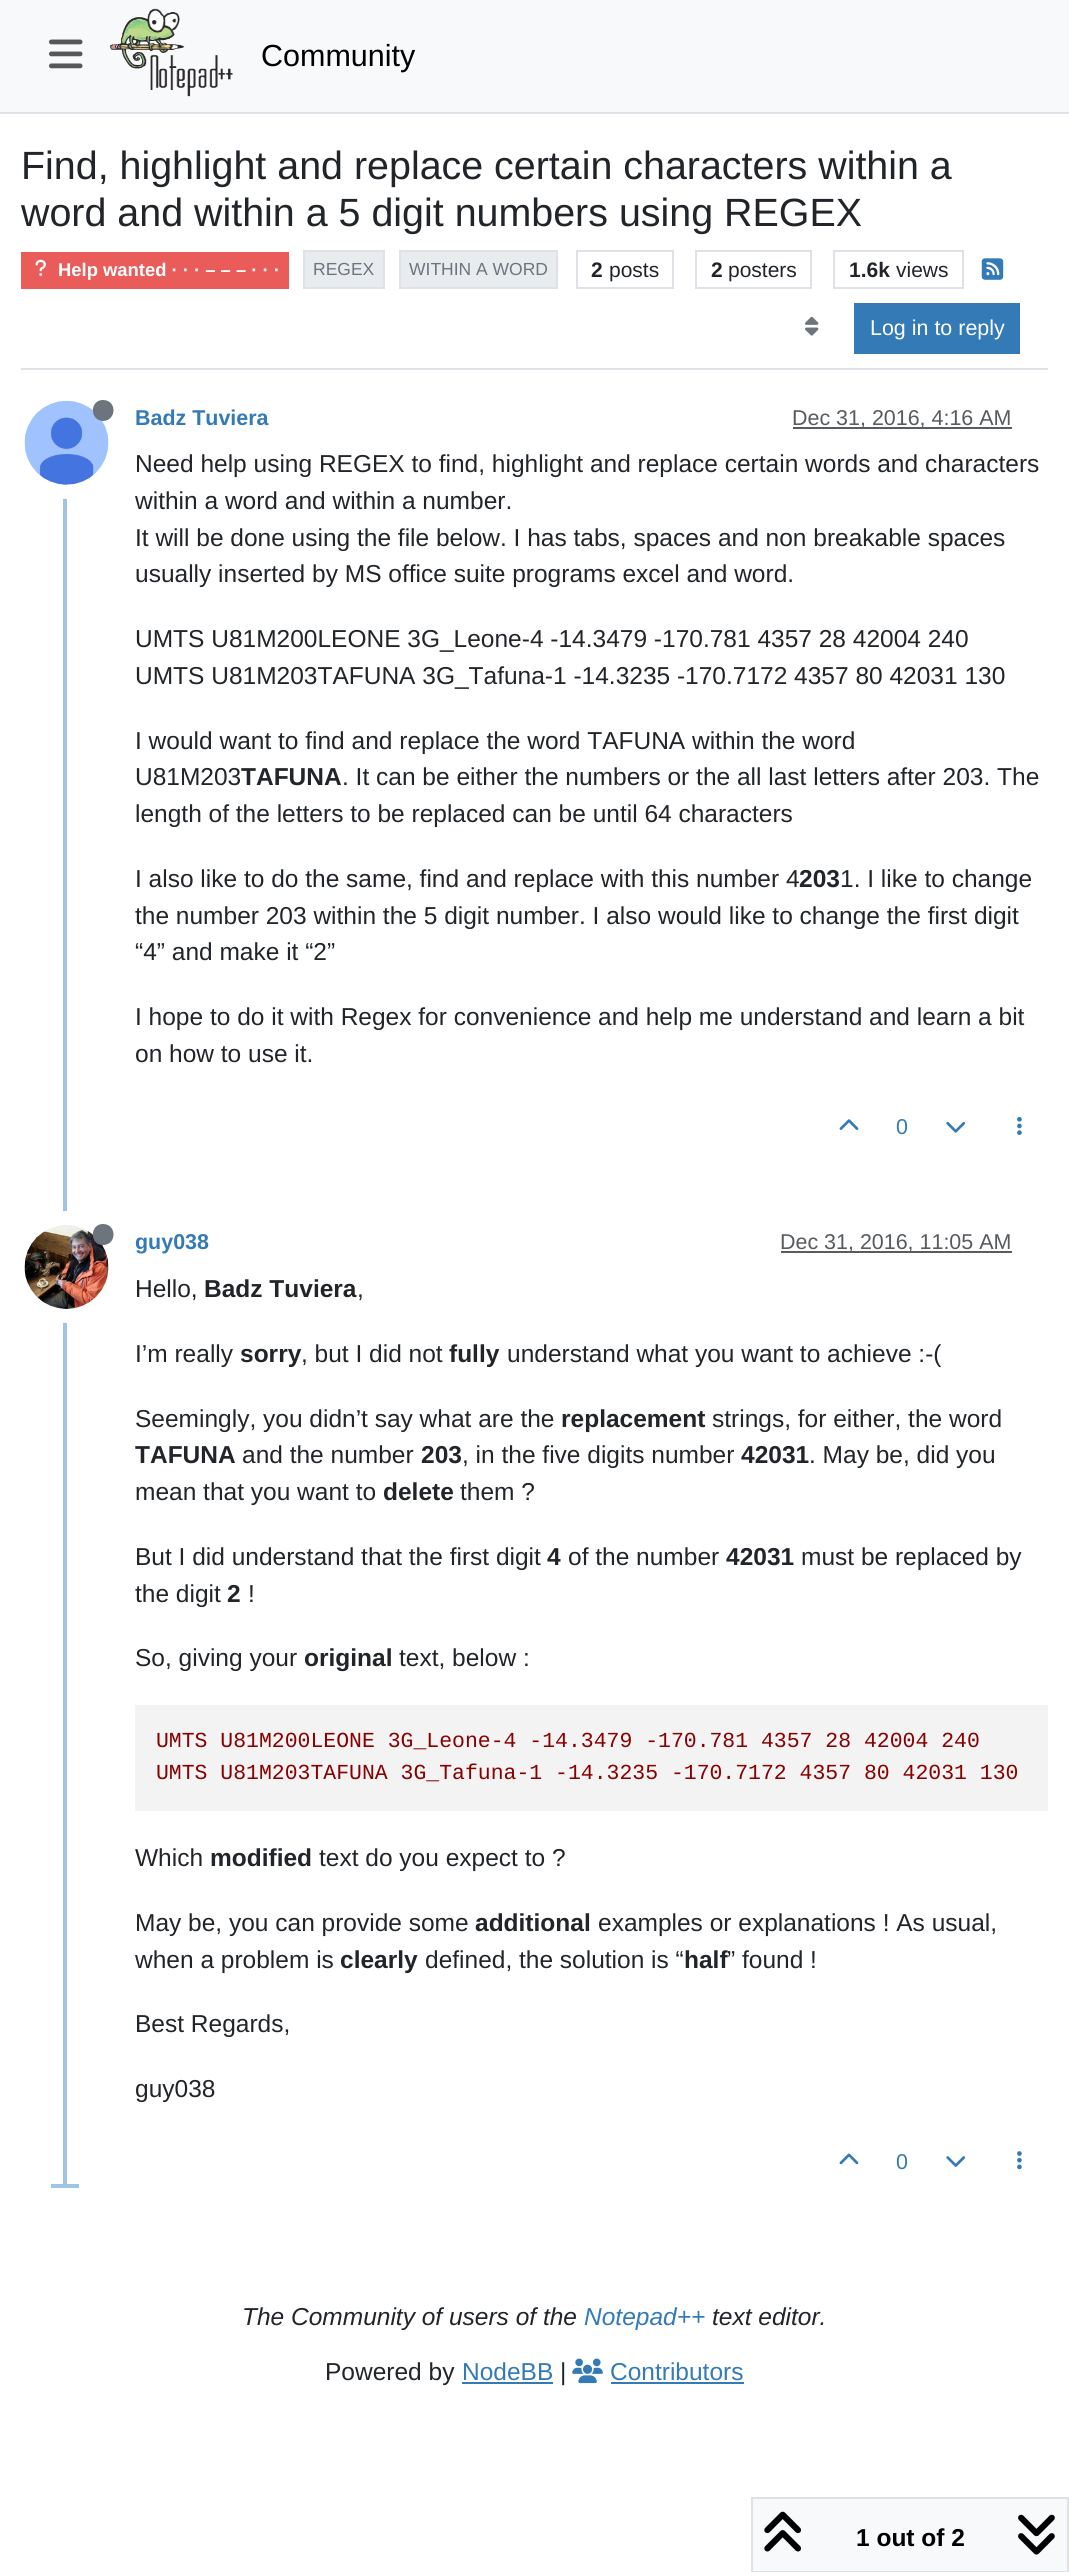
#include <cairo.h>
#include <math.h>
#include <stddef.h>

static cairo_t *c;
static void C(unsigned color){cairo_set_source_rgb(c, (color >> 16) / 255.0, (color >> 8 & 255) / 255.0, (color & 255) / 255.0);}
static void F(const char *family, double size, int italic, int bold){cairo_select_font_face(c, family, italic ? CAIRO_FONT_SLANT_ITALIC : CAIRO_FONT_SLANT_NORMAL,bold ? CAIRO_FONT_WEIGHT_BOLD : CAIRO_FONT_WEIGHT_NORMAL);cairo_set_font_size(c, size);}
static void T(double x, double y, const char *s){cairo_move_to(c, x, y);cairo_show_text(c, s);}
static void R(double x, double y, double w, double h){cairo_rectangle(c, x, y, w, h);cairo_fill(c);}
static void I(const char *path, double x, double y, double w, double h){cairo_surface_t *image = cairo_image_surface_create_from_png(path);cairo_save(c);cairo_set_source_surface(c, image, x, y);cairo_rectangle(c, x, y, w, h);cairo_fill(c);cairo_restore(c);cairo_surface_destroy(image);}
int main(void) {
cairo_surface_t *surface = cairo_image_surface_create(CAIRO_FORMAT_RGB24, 1069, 2572);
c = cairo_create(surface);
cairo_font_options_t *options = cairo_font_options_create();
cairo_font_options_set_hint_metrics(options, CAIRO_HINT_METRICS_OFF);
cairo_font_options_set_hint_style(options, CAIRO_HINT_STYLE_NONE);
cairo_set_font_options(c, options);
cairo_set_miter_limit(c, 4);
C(0xffffff);
cairo_paint(c);
C(0xf8f9fa);
R(0,0,1069,112);
C(0xdee2e6);
R(0,112,1069,2);
I("1.png",49,39,34,30);
I("2.png",110,8,123,89);
F("Liberation Sans",30.5,0,0);
C(0x000000);
T(261,66,"Community");
C(0xdee2e6);
R(21,368,1027,2);
F("Liberation Sans",39.4,0,0);
C(0x212529);
T(21,179,"Find, highlight and replace certain characters within a");
T(21,226,"word and within a 5 digit numbers using REGEX");
C(0xe95c5a);
R(21,252,268,37);
I("3.png",35,259,11,17);
F("Liberation Sans",18.4,0,1);
C(0xffffff);
T(58,276,"Help wanted · · · – – – · · ·");
C(0xe9ecef);
cairo_rectangle(c,304,251,80,37);
cairo_fill_preserve(c);
C(0xdee2e6);
cairo_stroke(c);
F("Liberation Sans",17.5,0,0);
C(0x6c757d);
T(313,275,"REGEX");
C(0xe9ecef);
cairo_rectangle(c,400,251,157,37);
cairo_fill_preserve(c);
C(0xdee2e6);
cairo_stroke(c);
C(0x6c757d);
T(409,275,"WITHIN A WORD");
cairo_rectangle(c,577,251,96,37);
C(0xdee2e6);
cairo_stroke(c);
F("Liberation Sans",21,0,1);
C(0x212529);
T(591,277,"2");
F("Liberation Sans",21,0,0);
T(609,277,"posts");
cairo_rectangle(c,696,251,115,37);
C(0xdee2e6);
cairo_stroke(c);
F("Liberation Sans",21,0,1);
C(0x212529);
T(711,277,"2");
F("Liberation Sans",21,0,0);
T(728,277,"posters");
cairo_rectangle(c,834,251,129,37);
C(0xdee2e6);
cairo_stroke(c);
F("Liberation Sans",21,0,1);
C(0x212529);
T(849,277,"1.6k");
F("Liberation Sans",21,0,0);
T(896,277,"views");
I("4.png",981,258,23,22);
I("5.png",805,316,14,20);
C(0x337ab7);
R(854,303,166,51);
F("Liberation Sans",21.45,0,0);
C(0xffffff);
T(870,335,"Log in to reply");
C(0xa0c4e4);
R(63,484,4,1704);
cairo_new_path(c);
cairo_arc(c,67,443,49,0,2 * M_PI);
C(0xffffff);
cairo_set_line_width(c,14);
cairo_stroke(c);
I("6.png",24,400,85,85);
C(0x6c757d);
cairo_new_path(c);
cairo_move_to(c,103,421);
cairo_curve_to(c,117,420.5,117,400,103,400);
cairo_curve_to(c,89.5,400,89.5,420.5,103,421);
cairo_close_path(c);
cairo_fill(c);
F("Liberation Sans",21.45,0,1);
C(0x337ab7);
T(135,425,"Badz Tuviera");
C(0x595c5f);
R(793,427,219,2);
F("Liberation Sans",21.45,0,0);
C(0x585b5e);
T(792,425,"Dec 31, 2016, 4:16 AM");
F("Liberation Sans",24.5,0,0);
C(0x212529);
T(135,472,"Need help using REGEX to find, highlight and replace certain words and characters");
T(135,509,"within a word and within a number.");
T(135,546,"It will be done using the file below. I has tabs, spaces and non breakable spaces");
T(135,582,"usually inserted by MS office suite programs excel and word.");
T(135,647,"UMTS U81M200LEONE 3G_Leone-4 -14.3479 -170.781 4357 28 42004 240");
T(135,684,"UMTS U81M203TAFUNA 3G_Tafuna-1 -14.3235 -170.7172 4357 80 42031 130");
T(135,749,"I would want to find and replace the word TAFUNA within the word");
T(135,785,"U81M203");
F("Liberation Sans",24.5,0,1);
T(241,785,"TAFUNA");
F("Liberation Sans",24.5,0,0);
T(342,785,". It can be either the numbers or the all last letters after 203. The");
T(135,822,"length of the letters to be replaced can be until 64 characters");
T(135,887,"I also like to do the same, find and replace with this number 4");
F("Liberation Sans",24.5,0,1);
T(799,887,"203");
F("Liberation Sans",24.5,0,0);
T(840,887,"1. I like to change");
T(135,924,"the number 203 within the 5 digit number. I also would like to change the first digit");
T(135,960,"“4” and make it “2”");
T(135,1025,"I hope to do it with Regex for convenience and help me understand and learn a bit");
T(135,1062,"on how to use it.");
I("7.png",839,1119,20,11);
F("Liberation Sans",21.45,0,0);
C(0x337ab7);
T(896,1134,"0");
I("8.png",946,1122,20,11);
I("9.png",1017,1116,5,19);
cairo_arc(c,67,1267,49,0,2 * M_PI);
C(0xffffff);
cairo_stroke(c);
I("10.png",24,1225,85,84);
C(0x6c757d);
cairo_new_path(c);
cairo_move_to(c,103,1245);
cairo_curve_to(c,117,1245,117,1224,103,1224);
cairo_curve_to(c,89.5,1224,89.5,1245,103,1245);
cairo_close_path(c);
cairo_fill(c);
F("Liberation Sans",21.45,0,1);
C(0x337ab7);
T(135,1249,"guy038");
C(0x595c5f);
R(781,1251,231,2);
F("Liberation Sans",21.45,0,0);
C(0x585b5e);
T(780,1249,"Dec 31, 2016, 11:05 AM");
F("Liberation Sans",24.5,0,0);
C(0x212529);
T(135,1297,"Hello,");
F("Liberation Sans",24.5,0,1);
T(204,1297,"Badz Tuviera");
F("Liberation Sans",24.5,0,0);
T(357,1297,",");
T(135,1362,"I’m really");
F("Liberation Sans",24.5,0,1);
T(240,1362,"sorry");
F("Liberation Sans",24.5,0,0);
T(301,1362,", but I did not");
F("Liberation Sans",24.5,0,1);
T(449,1362,"fully");
F("Liberation Sans",24.5,0,0);
T(507,1362,"understand what you want to achieve :-(");
T(135,1427,"Seemingly, you didn’t say what are the");
F("Liberation Sans",24.5,0,1);
T(561,1427,"replacement");
F("Liberation Sans",24.5,0,0);
T(712,1427,"strings, for either, the word");
F("Liberation Sans",24.5,0,1);
T(135,1463,"TAFUNA");
F("Liberation Sans",24.5,0,0);
T(242,1463,"and the number");
F("Liberation Sans",24.5,0,1);
T(421,1463,"203");
F("Liberation Sans",24.5,0,0);
T(462,1463,", in the five digits number");
F("Liberation Sans",24.5,0,1);
T(741,1463,"42031");
F("Liberation Sans",24.5,0,0);
T(809,1463,". May be, did you");
T(135,1500,"mean that you want to");
F("Liberation Sans",24.5,0,1);
T(383,1500,"delete");
F("Liberation Sans",24.5,0,0);
T(460,1500,"them ?");
T(135,1565,"But I did understand that the first digit");
F("Liberation Sans",24.5,0,1);
T(547,1565,"4");
F("Liberation Sans",24.5,0,0);
T(568,1565,"of the number");
F("Liberation Sans",24.5,0,1);
T(726,1565,"42031");
F("Liberation Sans",24.5,0,0);
T(801,1565,"must be replaced by");
T(135,1602,"the digit");
F("Liberation Sans",24.5,0,1);
T(227,1602,"2");
F("Liberation Sans",24.5,0,0);
T(248,1602,"!");
T(135,1666,"So, giving your");
F("Liberation Sans",24.5,0,1);
T(304,1666,"original");
F("Liberation Sans",24.5,0,0);
T(399,1666,"text, below :");
C(0xf3f3f3);
R(135,1705,913,106);
F("Liberation Mono",21.45,0,0);
C(0x880000);
T(156,1747,"UMTS U81M200LEONE 3G_Leone-4 -14.3479 -170.781 4357 28 42004 240");
T(156,1779,"UMTS U81M203TAFUNA 3G_Tafuna-1 -14.3235 -170.7172 4357 80 42031 130");
F("Liberation Sans",24.5,0,0);
C(0x212529);
T(135,1866,"Which");
F("Liberation Sans",24.5,0,1);
T(210,1866,"modified");
F("Liberation Sans",24.5,0,0);
T(319,1866,"text do you expect to ?");
T(135,1931,"May be, you can provide some");
F("Liberation Sans",24.5,0,1);
T(475,1931,"additional");
F("Liberation Sans",24.5,0,0);
T(598,1931,"examples or explanations ! As usual,");
T(135,1968,"when a problem is");
F("Liberation Sans",24.5,0,1);
T(340,1968,"clearly");
F("Liberation Sans",24.5,0,0);
T(425,1968,"defined, the solution is “");
F("Liberation Sans",24.5,0,1);
T(684,1968,"half");
F("Liberation Sans",24.5,0,0);
T(727,1968,"” found !");
T(135,2032,"Best Regards,");
T(135,2097,"guy038");
I("11.png",839,2153,20,12);
F("Liberation Sans",21.45,0,0);
C(0x337ab7);
T(896,2169,"0");
I("12.png",946,2156,20,11);
I("13.png",1017,2151,5,19);
C(0xa0c4e4);
R(51,2184,28,4);
C(0xf8f9fa);
cairo_rectangle(c,752,2498,316,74);
cairo_fill_preserve(c);
C(0xdee2e6);
cairo_set_line_width(c,2);
cairo_stroke(c);
I("14.png",764,2511,37,41);
F("Liberation Sans",24.5,0,1);
C(0x000000);
T(856,2546,"1 out of 2");
I("15.png",1018,2514,37,41);
F("Liberation Sans",24.5,1,0);
C(0x212529);
T(242,2325,"The Community of users of the");
C(0x337ab7);
T(584,2325,"Notepad++");
C(0x212529);
T(712,2325,"text editor.");
F("Liberation Sans",24.5,0,0);
T(325,2380,"Powered by");
C(0x337ab7);
T(462,2380,"NodeBB");
R(462,2382,91,2);
C(0x212529);
T(560,2380,"|");
I("16.png",572,2358,31,26);
C(0x337ab7);
T(610,2380,"Contributors");
R(611,2382,133,2);
cairo_surface_write_to_png(surface, "o.png");
cairo_font_options_destroy(options);
cairo_destroy(c);
cairo_surface_destroy(surface);
return 0;
}
